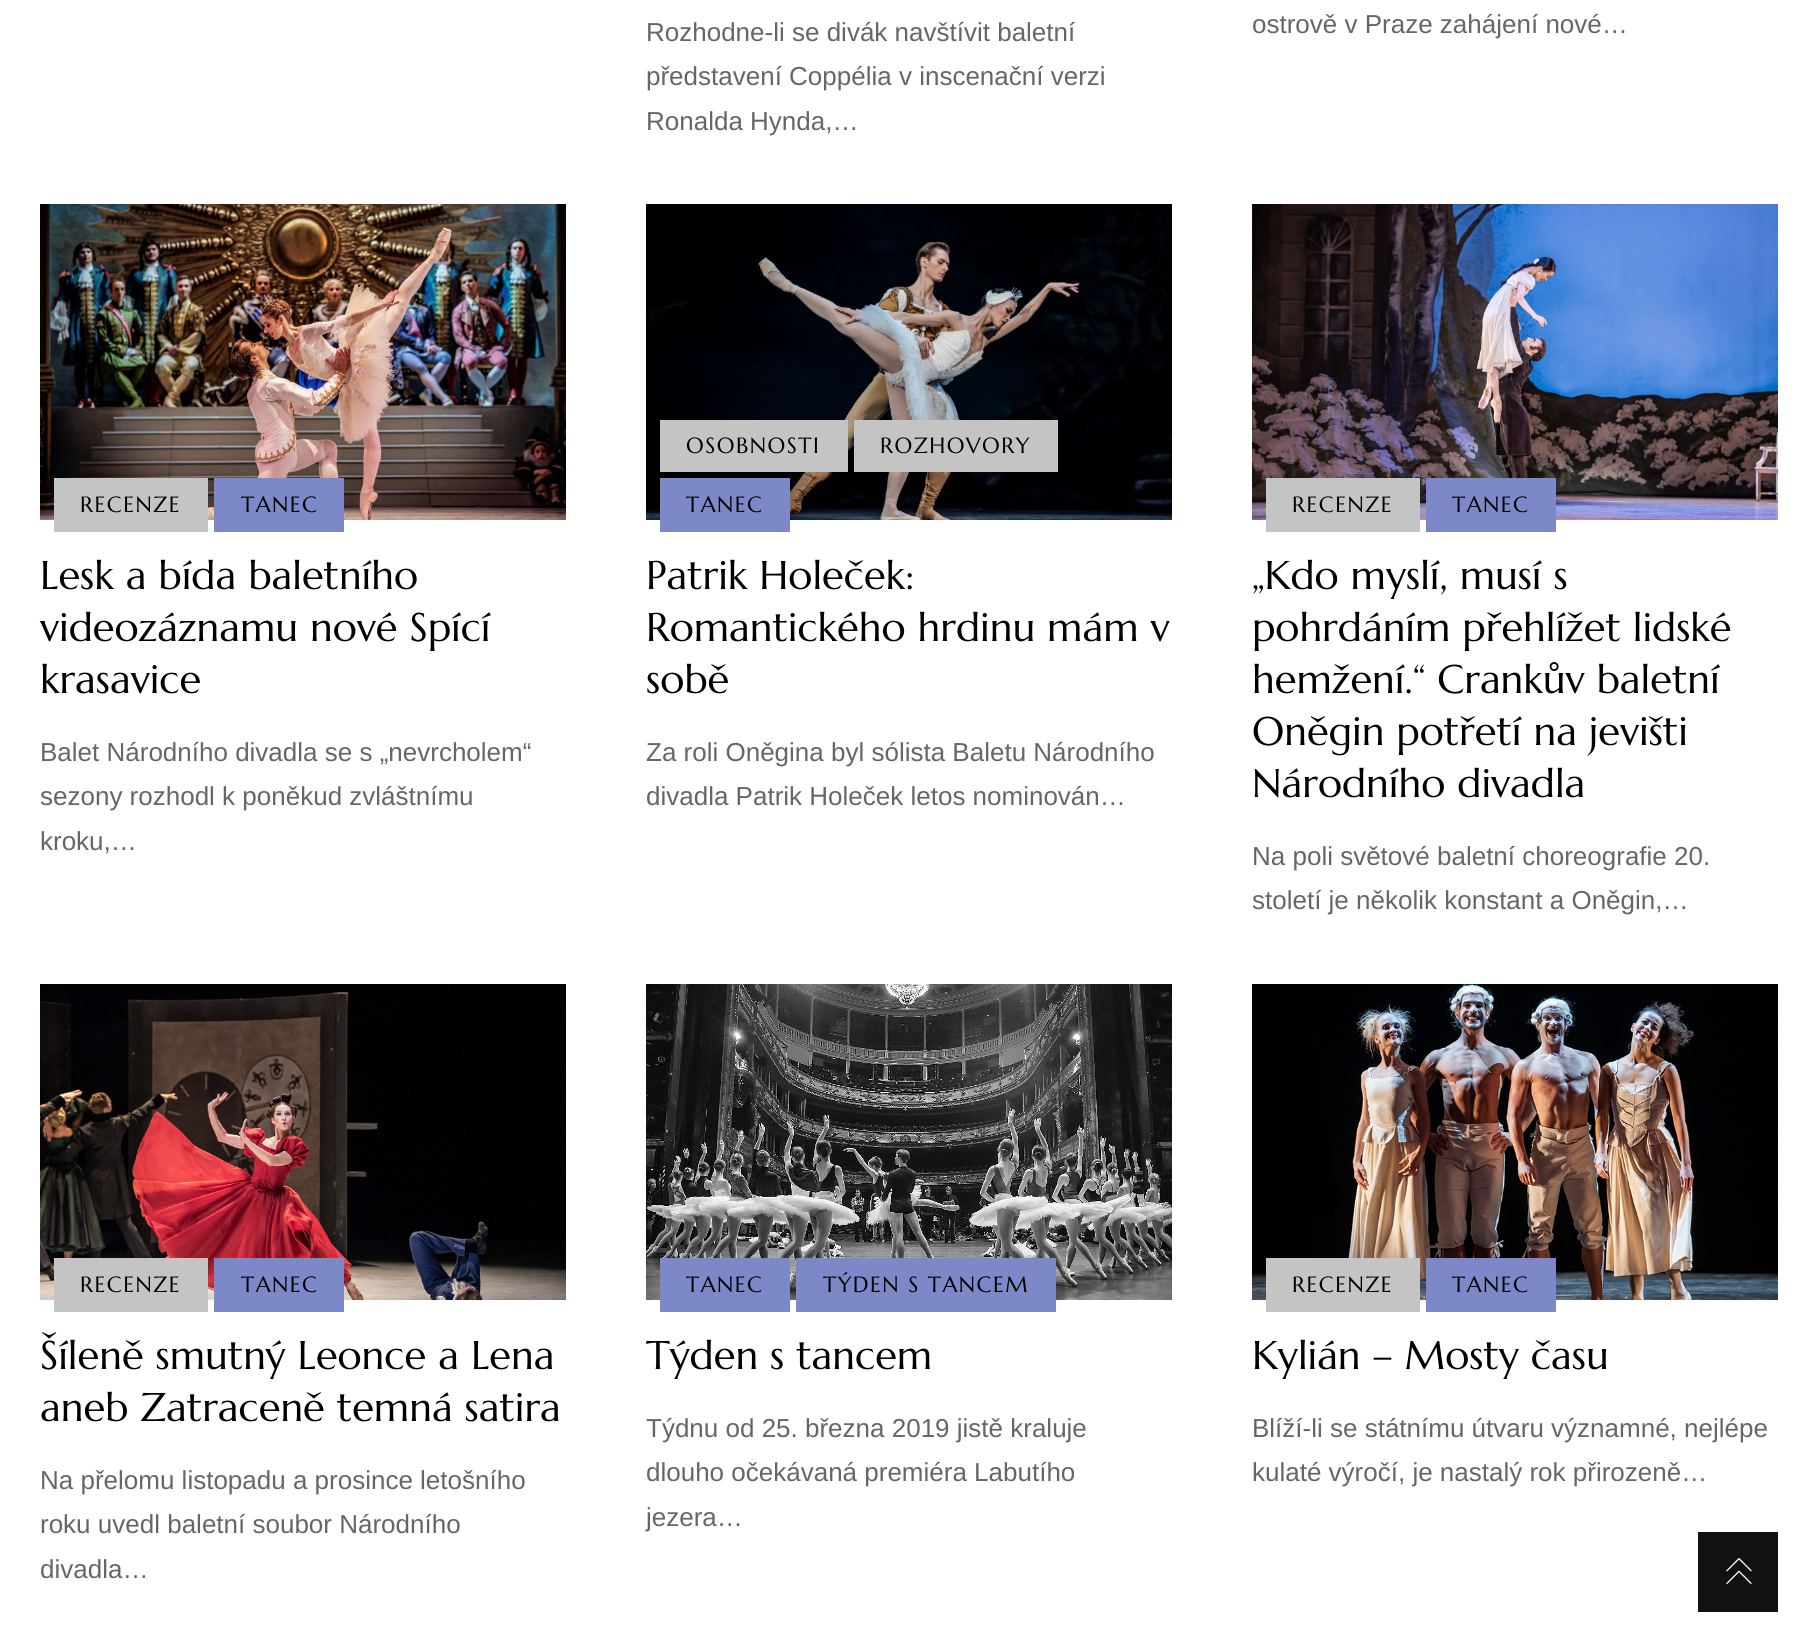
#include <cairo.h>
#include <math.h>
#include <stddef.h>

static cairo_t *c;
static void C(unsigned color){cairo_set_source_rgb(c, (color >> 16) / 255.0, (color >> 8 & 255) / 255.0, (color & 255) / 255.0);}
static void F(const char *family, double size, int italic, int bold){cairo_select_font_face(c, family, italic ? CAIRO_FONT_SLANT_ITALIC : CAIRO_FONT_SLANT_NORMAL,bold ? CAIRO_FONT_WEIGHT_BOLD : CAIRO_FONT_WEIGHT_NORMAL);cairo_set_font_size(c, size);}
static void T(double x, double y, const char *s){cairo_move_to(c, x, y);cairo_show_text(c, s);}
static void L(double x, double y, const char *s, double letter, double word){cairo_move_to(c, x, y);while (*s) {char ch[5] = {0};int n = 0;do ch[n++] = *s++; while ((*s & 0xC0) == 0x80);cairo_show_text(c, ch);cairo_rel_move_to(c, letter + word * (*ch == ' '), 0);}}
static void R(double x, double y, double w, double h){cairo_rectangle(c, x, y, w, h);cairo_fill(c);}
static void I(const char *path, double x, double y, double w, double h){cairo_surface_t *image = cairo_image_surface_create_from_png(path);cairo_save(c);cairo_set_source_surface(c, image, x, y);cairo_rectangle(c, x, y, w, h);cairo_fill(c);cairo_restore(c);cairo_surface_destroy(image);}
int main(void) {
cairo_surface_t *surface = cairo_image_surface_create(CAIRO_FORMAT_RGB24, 1817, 1651);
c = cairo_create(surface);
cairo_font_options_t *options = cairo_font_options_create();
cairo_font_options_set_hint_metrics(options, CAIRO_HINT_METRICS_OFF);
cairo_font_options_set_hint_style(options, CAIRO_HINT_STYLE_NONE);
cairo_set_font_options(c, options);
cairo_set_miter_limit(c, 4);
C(0xffffff);
cairo_paint(c);
F("Liberation Sans",26,0,0);
C(0x666666);
T(646,41,"Rozhodne-li se divák navštívit baletní");
T(646,85,"představení Coppélia v inscenační verzi");
T(646,130,"Ronalda Hynda,…");
T(1252,33,"ostrově v Praze zahájení nové…");
I("1.png",40,204,526,316);
C(0xc4c4c4);
R(54,478,154,54);
F("Marcellus",22,0,0);
C(0x000000);
L(80,512,"RECENZE",1.5,0);
C(0x7d88c9);
R(214,478,130,54);
C(0x000000);
L(241,512,"TANEC",1.5,0);
F("Marcellus",40,0,0);
T(40,589,"Lesk a bída baletního");
T(40,641,"videozáznamu nové Spící");
T(40,693,"krasavice");
F("Liberation Sans",26,0,0);
C(0x666666);
T(40,761,"Balet Národního divadla se s „nevrcholem“");
T(40,805,"sezony rozhodl k poněkud zvláštnímu");
T(40,850,"kroku,…");
I("2.png",646,204,526,316);
C(0xc4c4c4);
R(660,420,188,52);
F("Marcellus",22,0,0);
C(0x000000);
L(686,453,"OSOBNOSTI",1.5,0);
C(0xc4c4c4);
R(854,420,204,52);
C(0x000000);
L(880,453,"ROZHOVORY",1.5,0);
C(0x7d88c9);
R(660,478,130,54);
C(0x000000);
L(686,512,"TANEC",1.5,0);
F("Marcellus",40,0,0);
T(646,589,"Patrik Holeček:");
T(646,641,"Romantického hrdinu mám v");
T(646,693,"sobě");
F("Liberation Sans",26,0,0);
C(0x666666);
T(646,761,"Za roli Oněgina byl sólista Baletu Národního");
T(646,805,"divadla Patrik Holeček letos nominován…");
I("3.png",1252,204,526,316);
C(0xc4c4c4);
R(1266,478,154,54);
F("Marcellus",22,0,0);
C(0x000000);
L(1292,512,"RECENZE",1.5,0);
C(0x7d88c9);
R(1426,478,130,54);
C(0x000000);
L(1452,512,"TANEC",1.5,0);
F("Marcellus",40,0,0);
T(1252,589,"„Kdo myslí, musí s");
T(1252,641,"pohrdáním přehlížet lidské");
T(1252,693,"hemžení.“ Crankův baletní");
T(1252,745,"Oněgin potřetí na jevišti");
T(1252,797,"Národního divadla");
F("Liberation Sans",26,0,0);
C(0x666666);
T(1252,865,"Na poli světové baletní choreografie 20.");
T(1252,909,"století je několik konstant a Oněgin,…");
I("4.png",40,984,526,316);
C(0xc4c4c4);
R(54,1258,154,54);
F("Marcellus",22,0,0);
C(0x000000);
L(80,1292,"RECENZE",1.5,0);
C(0x7d88c9);
R(214,1258,130,54);
C(0x000000);
L(241,1292,"TANEC",1.5,0);
F("Marcellus",40,0,0);
T(40,1369,"Šíleně smutný Leonce a Lena");
T(40,1421,"aneb Zatraceně temná satira");
F("Liberation Sans",26,0,0);
C(0x666666);
T(40,1489,"Na přelomu listopadu a prosince letošního");
T(40,1533,"roku uvedl baletní soubor Národního");
T(40,1578,"divadla…");
I("5.png",646,984,526,316);
C(0x7d88c9);
R(660,1258,130,54);
F("Marcellus",22,0,0);
C(0x000000);
L(686,1292,"TANEC",1.5,0);
C(0x7d88c9);
R(796,1258,260,54);
C(0x000000);
L(823,1292,"TÝDEN S TANCEM",1.5,0);
F("Marcellus",40,0,0);
T(646,1369,"Týden s tancem");
F("Liberation Sans",26,0,0);
C(0x666666);
T(646,1437,"Týdnu od 25. března 2019 jistě kraluje");
T(646,1481,"dlouho očekávaná premiéra Labutího");
T(646,1526,"jezera…");
I("6.png",1252,984,526,316);
C(0xc4c4c4);
R(1266,1258,154,54);
F("Marcellus",22,0,0);
C(0x000000);
L(1292,1292,"RECENZE",1.5,0);
C(0x7d88c9);
R(1426,1258,130,54);
C(0x000000);
L(1452,1292,"TANEC",1.5,0);
F("Marcellus",40,0,0);
T(1252,1369,"Kylián – Mosty času");
F("Liberation Sans",26,0,0);
C(0x666666);
T(1252,1437,"Blíží-li se státnímu útvaru významné, nejlépe");
T(1252,1481,"kulaté výročí, je nastalý rok přirozeně…");
C(0x111111);
R(1698,1532,80,80);
I("7.png",1726,1558,26,26);
cairo_surface_write_to_png(surface, "o.png");
cairo_font_options_destroy(options);
cairo_destroy(c);
cairo_surface_destroy(surface);
return 0;
}
